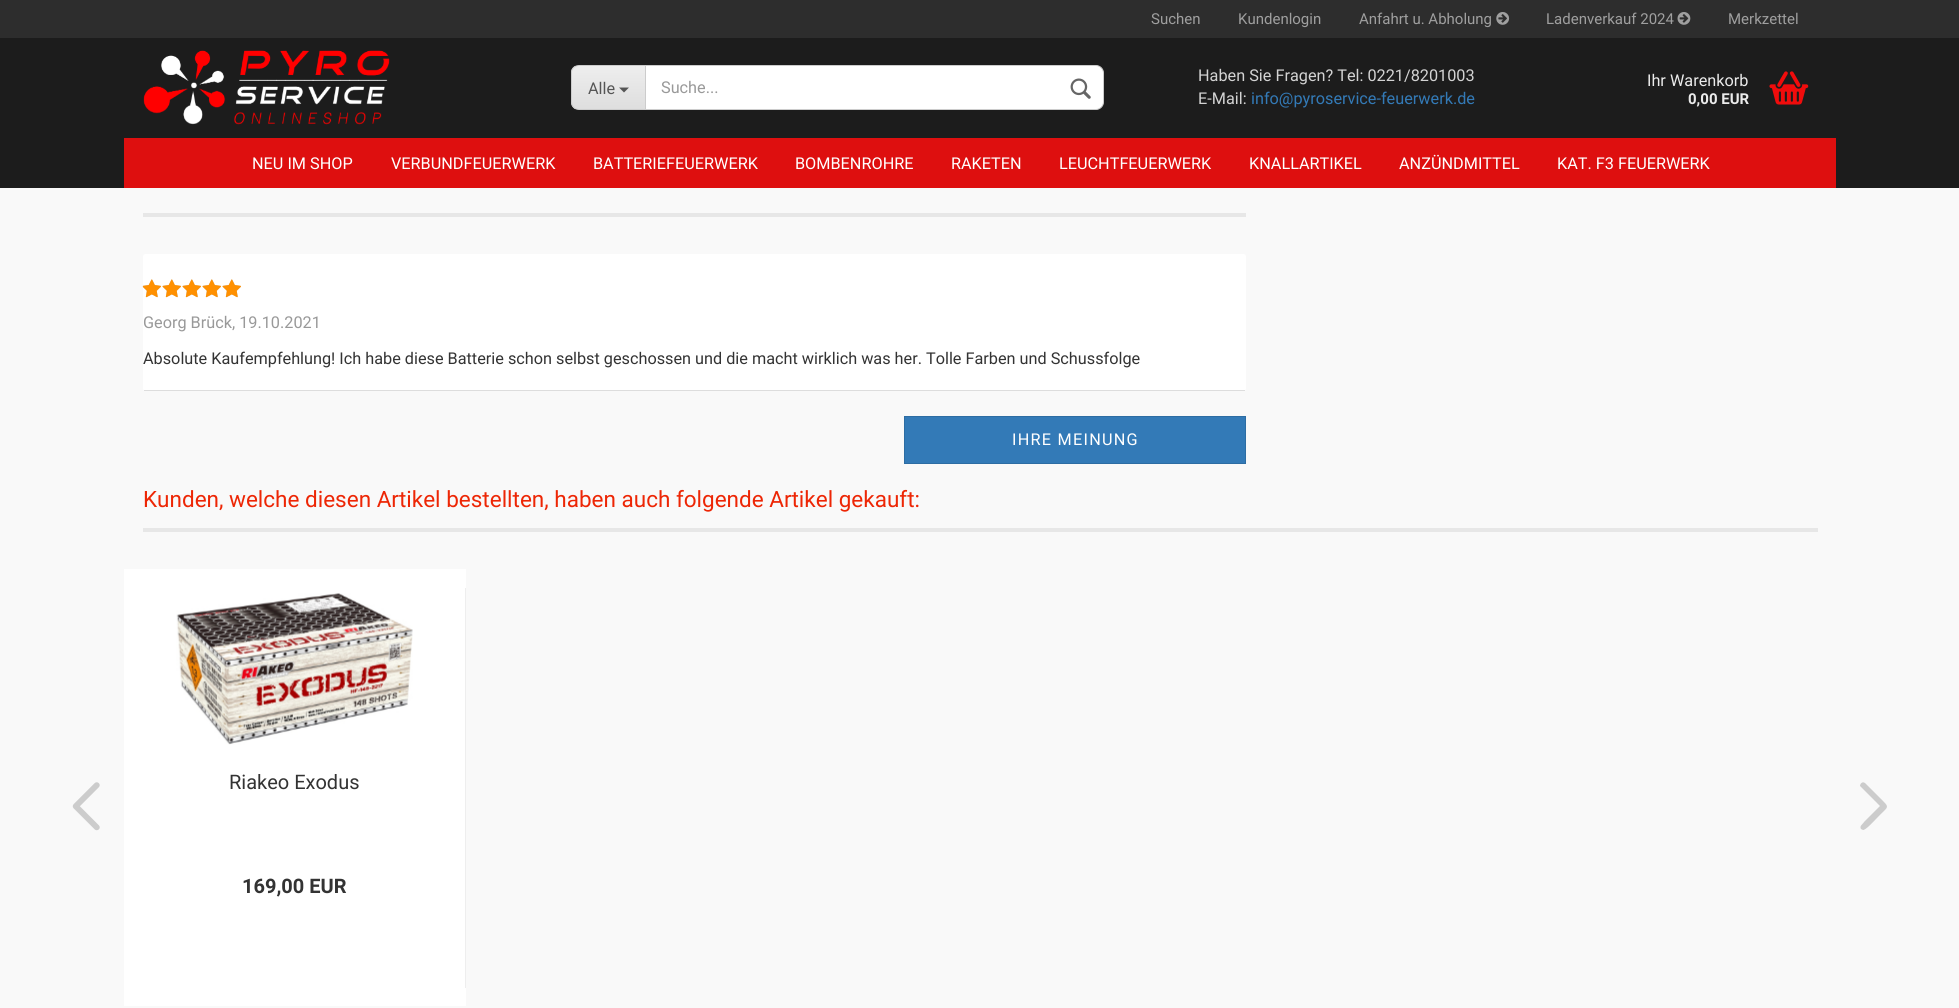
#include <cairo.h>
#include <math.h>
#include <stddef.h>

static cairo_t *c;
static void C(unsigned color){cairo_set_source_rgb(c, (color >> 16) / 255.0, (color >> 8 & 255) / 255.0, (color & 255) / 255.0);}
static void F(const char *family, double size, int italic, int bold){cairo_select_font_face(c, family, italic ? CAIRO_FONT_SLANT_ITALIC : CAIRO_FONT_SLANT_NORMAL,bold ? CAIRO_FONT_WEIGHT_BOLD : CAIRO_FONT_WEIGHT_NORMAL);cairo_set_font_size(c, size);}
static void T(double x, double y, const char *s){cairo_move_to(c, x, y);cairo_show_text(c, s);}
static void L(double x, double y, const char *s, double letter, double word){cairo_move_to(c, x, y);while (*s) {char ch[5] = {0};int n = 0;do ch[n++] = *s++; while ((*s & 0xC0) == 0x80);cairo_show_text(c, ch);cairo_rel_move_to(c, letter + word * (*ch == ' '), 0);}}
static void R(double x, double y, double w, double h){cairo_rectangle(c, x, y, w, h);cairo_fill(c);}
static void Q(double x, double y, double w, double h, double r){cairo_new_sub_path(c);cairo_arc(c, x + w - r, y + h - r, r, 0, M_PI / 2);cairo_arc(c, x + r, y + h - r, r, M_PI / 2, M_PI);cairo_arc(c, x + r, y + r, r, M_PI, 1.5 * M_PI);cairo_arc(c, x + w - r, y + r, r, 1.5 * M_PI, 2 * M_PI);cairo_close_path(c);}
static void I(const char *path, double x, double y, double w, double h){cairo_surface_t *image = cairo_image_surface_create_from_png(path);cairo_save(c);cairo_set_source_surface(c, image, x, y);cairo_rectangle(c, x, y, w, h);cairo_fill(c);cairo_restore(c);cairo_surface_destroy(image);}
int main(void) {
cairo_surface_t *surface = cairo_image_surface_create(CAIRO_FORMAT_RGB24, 1959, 1008);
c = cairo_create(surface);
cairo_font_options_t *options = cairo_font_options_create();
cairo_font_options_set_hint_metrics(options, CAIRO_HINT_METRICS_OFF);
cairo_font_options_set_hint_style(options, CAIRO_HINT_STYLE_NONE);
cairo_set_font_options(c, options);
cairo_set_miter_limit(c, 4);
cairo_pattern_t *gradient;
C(0xf9f9f9);
cairo_paint(c);
C(0x1c1c1c);
R(0,38,1959,150);
C(0x2d2d2d);
R(0,0,1959,38);
F("Roboto",15,0,0);
C(0x9f9f9f);
T(1151,24,"Suchen");
T(1238,24,"Kundenlogin");
T(1359,24,"Anfahrt u. Abholung");
I("1.png",1496,12,14,13);
T(1546,24,"Ladenverkauf 2024");
I("2.png",1677,12,14,13);
T(1728,24,"Merkzettel");
I("3.png",143,50,247,75);
cairo_save(c);
cairo_new_path(c);
cairo_move_to(c,579,65);
cairo_line_to(c,645,65);
cairo_line_to(c,645,110);
cairo_line_to(c,579,110);
cairo_curve_to(c,574.5,110,571,106.5,571,102);
cairo_line_to(c,571,73);
cairo_curve_to(c,571,68.5,574.5,65,579,65);
cairo_close_path(c);
cairo_clip(c);
gradient = cairo_pattern_create_linear(609,66,609,109);
cairo_pattern_add_color_stop_rgba(gradient,0,0.933,0.933,0.933,1);
cairo_pattern_add_color_stop_rgba(gradient,1,0.871,0.871,0.871,1);
cairo_set_source(c,gradient);
cairo_pattern_destroy(gradient);
R(571,66,74,43);
cairo_restore(c);
C(0xcccccc);
cairo_set_fill_rule(c,CAIRO_FILL_RULE_EVEN_ODD);
cairo_new_path(c);
cairo_move_to(c,579,65);
cairo_line_to(c,645,65);
cairo_line_to(c,645,110);
cairo_line_to(c,579,110);
cairo_curve_to(c,575,110,571,107,571,102);
cairo_line_to(c,571,72);
cairo_curve_to(c,571,68,575,65,579,65);
cairo_close_path(c);
cairo_move_to(c,579,66);
cairo_line_to(c,645,66);
cairo_line_to(c,645,109);
cairo_line_to(c,579,109);
cairo_curve_to(c,575,109,572,106,572,102);
cairo_line_to(c,572,72);
cairo_curve_to(c,572,69,575,66,579,66);
cairo_close_path(c);
cairo_fill(c);
F("Roboto",16.25,0,0);
C(0x555555);
T(588,94,"Alle");
cairo_set_fill_rule(c,CAIRO_FILL_RULE_WINDING);
cairo_new_path(c);
cairo_move_to(c,619,87.5);
cairo_line_to(c,629,87.5);
cairo_line_to(c,624,92.5);
cairo_close_path(c);
cairo_fill(c);
C(0xffffff);
cairo_new_path(c);
cairo_move_to(c,645.5,65.5);
cairo_line_to(c,1096,65.5);
cairo_curve_to(c,1100,65.5,1103.5,69,1103.5,73);
cairo_line_to(c,1103.5,102);
cairo_curve_to(c,1103.5,106,1100,109.5,1096,109.5);
cairo_line_to(c,645.5,109.5);
cairo_close_path(c);
cairo_fill_preserve(c);
C(0xcccccc);
cairo_set_line_width(c,1);
cairo_stroke(c);
C(0x999999);
T(661,93,"Suche...");
I("4.png",1070,78,21,21);
C(0xd3d3d3);
T(1198,81,"Haben Sie Fragen? Tel: 0221/8201003");
T(1198,104,"E-Mail:");
C(0x337ab7);
T(1251,104,"info@pyroservice-feuerwerk.de");
C(0xebebeb);
T(1647,86,"Ihr Warenkorb");
F("Roboto",15,0,1);
T(1688,104,"0,00 EUR");
I("5.png",1769,71,40,34);
C(0xde0f0f);
R(124,138,1712,50);
F("Roboto",16.25,0,0);
C(0xffffff);
T(252,169,"NEU IM SHOP");
T(391,169,"VERBUNDFEUERWERK");
T(593,169,"BATTERIEFEUERWERK");
T(795,169,"BOMBENROHRE");
T(951,169,"RAKETEN");
T(1059,169,"LEUCHTFEUERWERK");
T(1249,169,"KNALLARTIKEL");
T(1399,169,"ANZÜNDMITTEL");
T(1557,169,"KAT. F3 FEUERWERK");
C(0xe7e7e7);
R(143,213,1103,4);
C(0xffffff);
Q(143,254,1103,137,2.5);
cairo_fill(c);
C(0xdddddd);
R(144,390,1101,1);
I("6.png",142,279,19,19);
I("7.png",143,279,18,19);
I("9.png",162,279,19,19);
I("8.png",162,279,19,19);
I("9.png",182,279,19,19);
I("8.png",182,279,19,19);
I("9.png",202,279,19,19);
I("8.png",202,279,19,19);
I("9.png",222,279,19,19);
I("8.png",222,279,19,19);
C(0x999999);
T(143,328,"Georg Brück, 19.10.2021");
C(0x333333);
T(143,364,"Absolute Kaufempfehlung! Ich habe diese Batterie schon selbst geschossen und die macht wirklich was her. Tolle Farben und Schussfolge");
C(0x337ab7);
cairo_rectangle(c,904.5,416.5,341,47);
cairo_fill_preserve(c);
C(0x2d6da3);
cairo_stroke(c);
C(0xffffff);
L(1012,445,"IHRE MEINUNG",1.25,0);
C(0xe7e7e7);
R(143,528,1675,4);
F("Roboto",22.5,0,0);
C(0xed2605);
T(143,507,"Kunden, welche diesen Artikel bestellten, haben auch folgende Artikel gekauft:");
I("10.png",72,782,28,49);
C(0xffffff);
R(124,569,342,437);
C(0xeeeeee);
R(465,588,1,400);
I("11.png",176,593,237,152);
F("Roboto",20,0,0);
C(0x333333);
T(229,789,"Riakeo Exodus");
F("Roboto",20,0,1);
T(242,893,"169,00 EUR");
C(0xcccccc);
cairo_new_path(c);
cairo_move_to(c,1863,830);
cairo_line_to(c,1861,829);
cairo_curve_to(c,1859,826,1863,824,1864,822);
cairo_line_to(c,1880,806);
cairo_line_to(c,1860,786);
cairo_curve_to(c,1860,784,1862,781,1865,783);
cairo_line_to(c,1879,797);
cairo_curve_to(c,1891,809,1889,805,1876,819);
cairo_curve_to(c,1874,821,1866,830,1863,830);
cairo_close_path(c);
cairo_fill(c);
cairo_surface_write_to_png(surface, "o.png");
cairo_font_options_destroy(options);
cairo_destroy(c);
cairo_surface_destroy(surface);
return 0;
}
